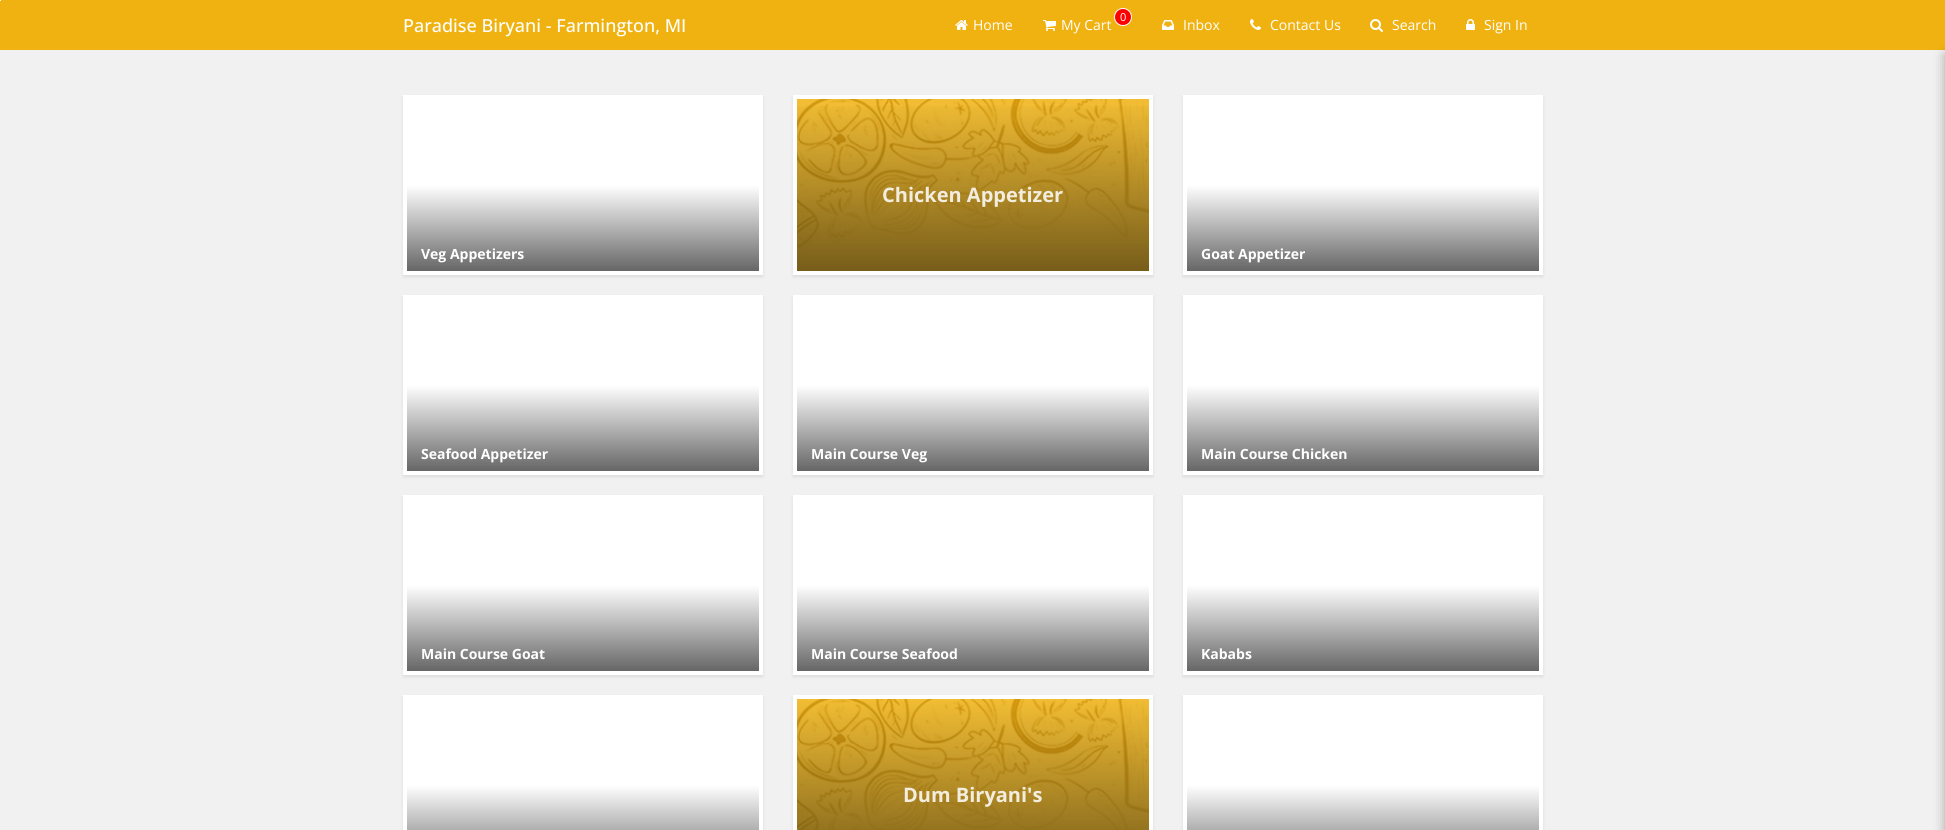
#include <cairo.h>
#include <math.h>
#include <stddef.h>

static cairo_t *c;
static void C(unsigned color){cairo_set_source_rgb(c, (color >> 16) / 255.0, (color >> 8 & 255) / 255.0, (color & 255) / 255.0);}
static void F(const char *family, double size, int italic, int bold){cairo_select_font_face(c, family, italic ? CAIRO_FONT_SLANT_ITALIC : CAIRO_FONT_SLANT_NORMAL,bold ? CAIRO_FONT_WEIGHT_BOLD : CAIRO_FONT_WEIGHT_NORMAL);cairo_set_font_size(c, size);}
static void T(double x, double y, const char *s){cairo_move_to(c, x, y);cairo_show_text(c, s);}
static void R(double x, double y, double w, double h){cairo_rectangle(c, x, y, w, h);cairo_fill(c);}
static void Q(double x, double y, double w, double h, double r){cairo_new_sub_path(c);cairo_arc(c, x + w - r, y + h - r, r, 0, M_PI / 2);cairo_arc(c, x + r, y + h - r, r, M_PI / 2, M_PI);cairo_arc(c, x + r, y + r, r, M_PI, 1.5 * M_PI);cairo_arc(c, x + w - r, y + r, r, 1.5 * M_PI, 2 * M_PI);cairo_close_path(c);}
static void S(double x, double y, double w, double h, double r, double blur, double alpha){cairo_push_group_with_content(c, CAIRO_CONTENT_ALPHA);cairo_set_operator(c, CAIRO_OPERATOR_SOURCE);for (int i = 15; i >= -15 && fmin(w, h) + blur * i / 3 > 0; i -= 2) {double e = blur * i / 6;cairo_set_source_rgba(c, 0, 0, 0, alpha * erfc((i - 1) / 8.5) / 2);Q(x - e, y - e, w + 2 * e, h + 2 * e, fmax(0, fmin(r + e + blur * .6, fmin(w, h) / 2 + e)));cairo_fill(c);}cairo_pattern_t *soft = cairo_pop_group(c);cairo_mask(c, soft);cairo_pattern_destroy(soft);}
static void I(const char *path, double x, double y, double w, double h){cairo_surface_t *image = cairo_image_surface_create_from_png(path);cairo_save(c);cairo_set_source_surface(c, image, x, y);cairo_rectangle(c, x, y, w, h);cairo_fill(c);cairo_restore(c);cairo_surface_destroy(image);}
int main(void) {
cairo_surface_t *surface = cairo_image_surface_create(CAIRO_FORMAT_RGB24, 1945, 830);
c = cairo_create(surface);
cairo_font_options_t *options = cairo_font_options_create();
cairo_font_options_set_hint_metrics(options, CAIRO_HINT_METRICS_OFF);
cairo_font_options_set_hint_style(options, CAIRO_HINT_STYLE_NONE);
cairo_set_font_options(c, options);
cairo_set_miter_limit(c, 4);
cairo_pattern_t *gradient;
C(0xf1f1f1);
cairo_paint(c);
C(0xf0b211);
R(0,0,1945,50);
C(0xffffff);
R(0,0,1,1);
F("Open Sans Medium",18,0,0);
T(403,32,"Paradise Biryani - Farmington, MI");
I("1.png",955,20,13,10);
F("Open Sans",14,0,0);
T(973,30,"Home");
C(0xff0000);
cairo_new_path(c);
cairo_arc(c,1123,17,8.5,0,2 * M_PI);
cairo_fill_preserve(c);
C(0xffffff);
cairo_set_line_width(c,1);
cairo_stroke(c);
F("Open Sans",11,0,0);
T(1120,21,"0");
I("2.png",1043,20,13,11);
F("Open Sans",14,0,0);
T(1061,30,"My Cart");
I("3.png",1162,20,12,10);
T(1183,30,"Inbox");
I("4.png",1250,19,11,11);
T(1270,30,"Contact Us");
I("5.png",1370,19,13,13);
T(1392,30,"Search");
I("6.png",1466,19,9,11);
T(1484,30,"Sign In");
C(0xdddddd);
S(793,97,360,180,0,1.5,1);
C(0xf2be35);
R(797,249,352,22);
I("7.png",797,99,352,150);
cairo_rectangle(c,795,97,356,176);
C(0xffffff);
cairo_set_line_width(c,4);
cairo_stroke(c);
gradient = cairo_pattern_create_linear(973,99,973,271);
cairo_pattern_add_color_stop_rgba(gradient,0,0,0,0,0);
cairo_pattern_add_color_stop_rgba(gradient,1,0,0,0,.51);
cairo_set_source(c,gradient);
cairo_pattern_destroy(gradient);
R(797,106,352,165);
F("Open Sans",20,0,1);
C(0xf2edde);
T(882,202,"Chicken Appetizer");
C(0xdddddd);
S(403,97,360,180,0,1.5,1);
C(0xffffff);
R(403,95,360,180);
gradient = cairo_pattern_create_linear(583,185,583,271);
cairo_pattern_add_color_stop_rgba(gradient,0,1,1,1,1);
cairo_pattern_add_color_stop_rgba(gradient,1,0.4,0.4,0.4,1);
cairo_set_source(c,gradient);
cairo_pattern_destroy(gradient);
R(407,186,352,85);
F("Open Sans",14,0,1);
C(0xffffff);
T(421,259,"Veg Appetizers");
C(0xdddddd);
S(1183,97,360,180,0,1.5,1);
C(0xffffff);
R(1183,95,360,180);
gradient = cairo_pattern_create_linear(1363,185,1363,271);
cairo_pattern_add_color_stop_rgba(gradient,0,1,1,1,1);
cairo_pattern_add_color_stop_rgba(gradient,1,0.4,0.4,0.4,1);
cairo_set_source(c,gradient);
cairo_pattern_destroy(gradient);
R(1187,186,352,85);
C(0xffffff);
T(1201,259,"Goat Appetizer");
C(0xdddddd);
S(403,297,360,180,0,1.5,1);
C(0xffffff);
R(403,295,360,180);
gradient = cairo_pattern_create_linear(583,385,583,471);
cairo_pattern_add_color_stop_rgba(gradient,0,1,1,1,1);
cairo_pattern_add_color_stop_rgba(gradient,1,0.4,0.4,0.4,1);
cairo_set_source(c,gradient);
cairo_pattern_destroy(gradient);
R(407,386,352,85);
C(0xffffff);
T(421,459,"Seafood Appetizer");
C(0xdddddd);
S(793,297,360,180,0,1.5,1);
C(0xffffff);
R(793,295,360,180);
gradient = cairo_pattern_create_linear(973,385,973,471);
cairo_pattern_add_color_stop_rgba(gradient,0,1,1,1,1);
cairo_pattern_add_color_stop_rgba(gradient,1,0.4,0.4,0.4,1);
cairo_set_source(c,gradient);
cairo_pattern_destroy(gradient);
R(797,386,352,85);
C(0xffffff);
T(811,459,"Main Course Veg");
C(0xdddddd);
S(1183,297,360,180,0,1.5,1);
C(0xffffff);
R(1183,295,360,180);
gradient = cairo_pattern_create_linear(1363,385,1363,471);
cairo_pattern_add_color_stop_rgba(gradient,0,1,1,1,1);
cairo_pattern_add_color_stop_rgba(gradient,1,0.4,0.4,0.4,1);
cairo_set_source(c,gradient);
cairo_pattern_destroy(gradient);
R(1187,386,352,85);
C(0xffffff);
T(1201,459,"Main Course Chicken");
C(0xdddddd);
S(403,497,360,180,0,1.5,1);
C(0xffffff);
R(403,495,360,180);
gradient = cairo_pattern_create_linear(583,585,583,671);
cairo_pattern_add_color_stop_rgba(gradient,0,1,1,1,1);
cairo_pattern_add_color_stop_rgba(gradient,1,0.4,0.4,0.4,1);
cairo_set_source(c,gradient);
cairo_pattern_destroy(gradient);
R(407,586,352,85);
C(0xffffff);
T(421,659,"Main Course Goat");
C(0xdddddd);
S(793,497,360,180,0,1.5,1);
C(0xffffff);
R(793,495,360,180);
gradient = cairo_pattern_create_linear(973,585,973,671);
cairo_pattern_add_color_stop_rgba(gradient,0,1,1,1,1);
cairo_pattern_add_color_stop_rgba(gradient,1,0.4,0.4,0.4,1);
cairo_set_source(c,gradient);
cairo_pattern_destroy(gradient);
R(797,586,352,85);
C(0xffffff);
T(811,659,"Main Course Seafood");
C(0xdddddd);
S(1183,497,360,180,0,1.5,1);
C(0xffffff);
R(1183,495,360,180);
gradient = cairo_pattern_create_linear(1363,585,1363,671);
cairo_pattern_add_color_stop_rgba(gradient,0,1,1,1,1);
cairo_pattern_add_color_stop_rgba(gradient,1,0.4,0.4,0.4,1);
cairo_set_source(c,gradient);
cairo_pattern_destroy(gradient);
R(1187,586,352,85);
C(0xffffff);
T(1201,659,"Kababs");
C(0xdddddd);
S(403,697,360,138,0,1.5,1);
C(0xffffff);
R(403,695,360,135);
gradient = cairo_pattern_create_linear(583,785,583,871);
cairo_pattern_add_color_stop_rgba(gradient,0,1,1,1,1);
cairo_pattern_add_color_stop_rgba(gradient,1,0.4,0.4,0.4,1);
cairo_set_source(c,gradient);
cairo_pattern_destroy(gradient);
R(407,786,352,44);
C(0xdddddd);
S(793,697,360,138,0,1.5,1);
I("8.png",797,699,352,131);
cairo_rectangle(c,795,697,356,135);
C(0xffffff);
cairo_stroke(c);
F("Open Sans",20,0,1);
C(0xf2edde);
T(903,802,"Dum Biryani's");
C(0xdddddd);
S(1183,697,360,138,0,1.5,1);
C(0xffffff);
R(1183,695,360,135);
gradient = cairo_pattern_create_linear(1363,785,1363,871);
cairo_pattern_add_color_stop_rgba(gradient,0,1,1,1,1);
cairo_pattern_add_color_stop_rgba(gradient,1,0.4,0.4,0.4,1);
cairo_set_source(c,gradient);
cairo_pattern_destroy(gradient);
R(1187,786,352,44);
C(0x000000);
S(1945,55,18,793,0,6,.32);
cairo_surface_write_to_png(surface, "o.png");
cairo_font_options_destroy(options);
cairo_destroy(c);
cairo_surface_destroy(surface);
return 0;
}
